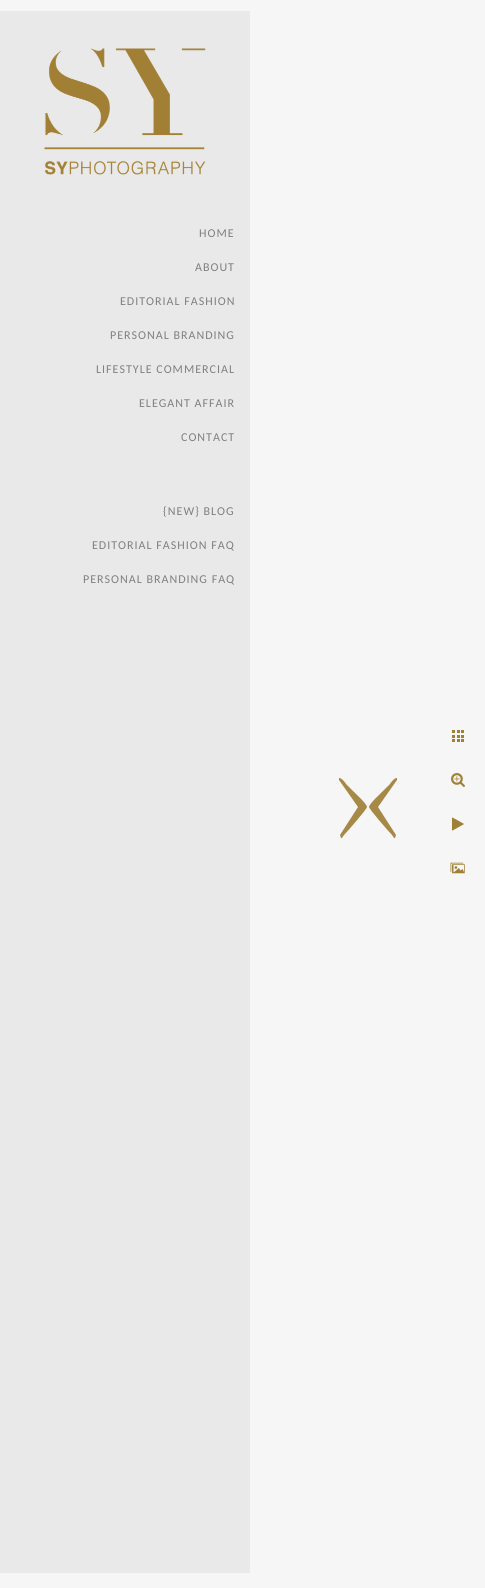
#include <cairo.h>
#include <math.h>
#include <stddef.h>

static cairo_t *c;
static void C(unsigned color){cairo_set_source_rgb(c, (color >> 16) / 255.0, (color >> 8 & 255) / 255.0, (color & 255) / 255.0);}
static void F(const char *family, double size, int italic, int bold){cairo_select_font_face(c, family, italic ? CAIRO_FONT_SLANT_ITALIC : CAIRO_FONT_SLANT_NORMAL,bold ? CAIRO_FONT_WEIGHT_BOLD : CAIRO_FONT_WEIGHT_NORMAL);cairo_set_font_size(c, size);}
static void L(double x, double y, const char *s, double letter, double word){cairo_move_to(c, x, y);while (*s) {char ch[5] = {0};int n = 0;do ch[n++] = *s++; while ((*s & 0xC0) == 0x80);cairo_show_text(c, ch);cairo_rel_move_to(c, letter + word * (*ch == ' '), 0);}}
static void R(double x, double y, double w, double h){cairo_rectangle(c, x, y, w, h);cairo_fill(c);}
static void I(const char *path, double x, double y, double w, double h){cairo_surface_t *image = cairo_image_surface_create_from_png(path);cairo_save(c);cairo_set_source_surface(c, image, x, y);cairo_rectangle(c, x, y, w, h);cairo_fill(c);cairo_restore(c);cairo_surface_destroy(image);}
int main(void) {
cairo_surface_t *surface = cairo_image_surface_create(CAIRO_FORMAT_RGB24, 485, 1588);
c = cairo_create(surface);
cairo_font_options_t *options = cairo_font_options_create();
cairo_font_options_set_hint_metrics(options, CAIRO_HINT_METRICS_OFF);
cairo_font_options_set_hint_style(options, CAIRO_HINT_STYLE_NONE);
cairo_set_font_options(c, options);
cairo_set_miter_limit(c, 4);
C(0xf6f6f6);
cairo_paint(c);
C(0xe9e9e9);
R(0,11,250,1562);
I("1.png",44,48,162,127);
F("Carlito",12,0,0);
C(0x808080);
L(199,237,"HOME",1,0);
L(195,271,"ABOUT",1,0);
L(120,305,"EDITORIAL FASHION",1,0);
L(110,339,"PERSONAL BRANDING",1,0);
L(96,373,"LIFESTYLE COMMERCIAL",1,0);
L(139,407,"ELEGANT AFFAIR",1,0);
L(181,441,"CONTACT",1,0);
L(163,515,"{NEW} BLOG",1,0);
L(92,549,"EDITORIAL FASHION FAQ",1,0);
L(83,583,"PERSONAL BRANDING FAQ",1,0);
C(0xa68946);
cairo_new_path(c);
cairo_move_to(c,369,807);
cairo_curve_to(c,369,804,381,793,383,791);
cairo_line_to(c,390,784);
cairo_curve_to(c,390,783,398,774,397,780);
cairo_line_to(c,378,807);
cairo_line_to(c,396,835);
cairo_line_to(c,395,838);
cairo_curve_to(c,394,839,393,836,392,835);
cairo_curve_to(c,389,832,369,809,369,807);
cairo_close_path(c);
cairo_move_to(c,367,807);
cairo_curve_to(c,367,804,355,793,353,791);
cairo_line_to(c,346,784);
cairo_curve_to(c,346,783,338,774,339,780);
cairo_line_to(c,358,807);
cairo_line_to(c,340,835);
cairo_line_to(c,341,838);
cairo_curve_to(c,342,839,343,836,344,835);
cairo_curve_to(c,347,832,367,809,367,807);
cairo_close_path(c);
cairo_fill(c);
I("2.png",452,730,12,12);
I("3.png",451,773,14,14);
I("4.png",452,817,12,14);
I("5.png",450,862,15,12);
cairo_surface_write_to_png(surface, "o.png");
cairo_font_options_destroy(options);
cairo_destroy(c);
cairo_surface_destroy(surface);
return 0;
}
